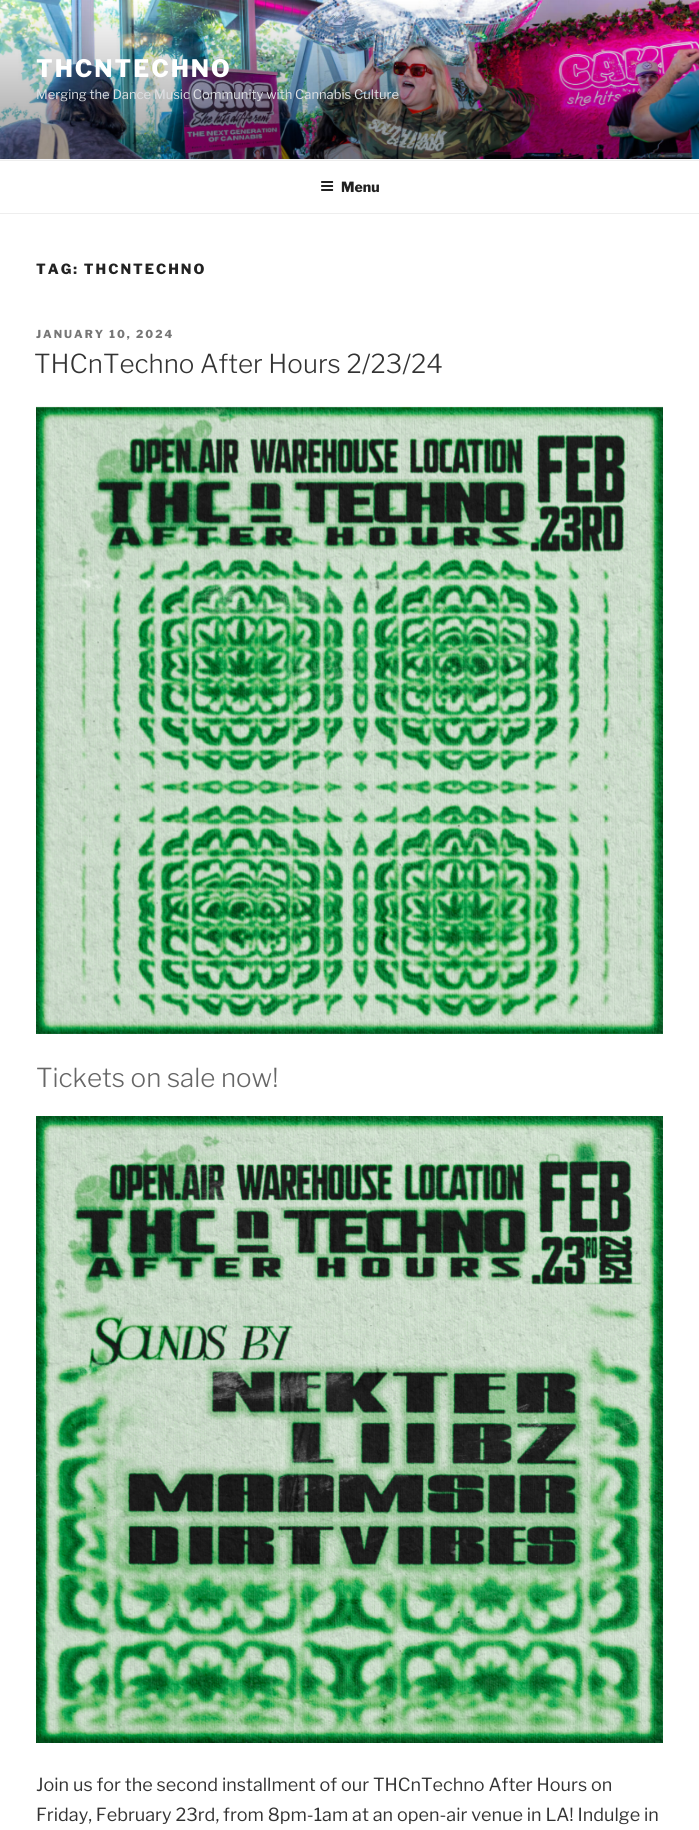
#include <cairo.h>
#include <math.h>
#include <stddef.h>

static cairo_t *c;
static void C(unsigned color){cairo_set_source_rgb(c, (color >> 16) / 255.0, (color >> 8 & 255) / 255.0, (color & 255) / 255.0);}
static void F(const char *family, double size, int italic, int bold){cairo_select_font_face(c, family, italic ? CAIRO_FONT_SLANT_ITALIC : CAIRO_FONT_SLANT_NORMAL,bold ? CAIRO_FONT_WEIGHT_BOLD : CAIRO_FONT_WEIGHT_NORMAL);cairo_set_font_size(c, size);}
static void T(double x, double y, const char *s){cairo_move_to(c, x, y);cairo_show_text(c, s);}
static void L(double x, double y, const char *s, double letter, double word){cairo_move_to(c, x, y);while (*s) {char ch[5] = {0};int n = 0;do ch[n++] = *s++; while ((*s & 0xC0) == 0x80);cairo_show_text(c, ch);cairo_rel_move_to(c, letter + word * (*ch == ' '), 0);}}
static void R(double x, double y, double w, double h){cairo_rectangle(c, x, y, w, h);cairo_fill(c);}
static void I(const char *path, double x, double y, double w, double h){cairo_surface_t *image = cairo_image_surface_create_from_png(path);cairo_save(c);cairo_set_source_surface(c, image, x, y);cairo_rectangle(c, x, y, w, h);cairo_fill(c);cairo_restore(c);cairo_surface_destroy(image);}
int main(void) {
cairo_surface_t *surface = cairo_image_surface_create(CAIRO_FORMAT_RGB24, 699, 1830);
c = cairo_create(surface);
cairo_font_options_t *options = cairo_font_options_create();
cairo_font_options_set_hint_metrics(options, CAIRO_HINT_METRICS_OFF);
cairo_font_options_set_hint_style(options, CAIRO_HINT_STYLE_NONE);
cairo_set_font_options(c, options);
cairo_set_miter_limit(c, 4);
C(0xffffff);
cairo_paint(c);
C(0xfafafa);
R(0,159,699,1);
I("1.png",0,0,699,159);
F("Libre Franklin Thin",24,0,0);
C(0xffffff);
L(36,77,"THCNTECHNO",2,0);
F("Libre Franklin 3 Thin",13,0,0);
C(0xdde0e3);
T(36,99,"Merging the Dance Music Community with Cannabis Culture");
C(0xeeeeee);
R(0,160,699,1);
R(0,213,699,1);
I("2.png",321,181,13,10);
F("Libre Franklin Thin",14,0,0);
C(0x222222);
T(341,192,"Menu");
L(36,274,"TAG: THCNTECHNO",2,0);
F("Libre Franklin Thin",11,0,0);
C(0x767676);
L(36,338,"JANUARY 10, 2024",2,0);
F("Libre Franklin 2 Thin",26,0,0);
C(0x333333);
T(34,373,"THCnTechno After Hours 2/23/24");
I("3.png",36,406,627,628);
C(0x666666);
T(36,1087,"Tickets on sale now!");
I("4.png",36,1116,627,627);
F("Libre Franklin 3 Thin",18,0,0);
C(0x333333);
T(36,1791,"Join us for the second installment of our THCnTechno After Hours on");
T(36,1821,"Friday, February 23rd, from 8pm-1am at an open-air venue in LA! Indulge in");
cairo_surface_write_to_png(surface, "o.png");
cairo_font_options_destroy(options);
cairo_destroy(c);
cairo_surface_destroy(surface);
return 0;
}
